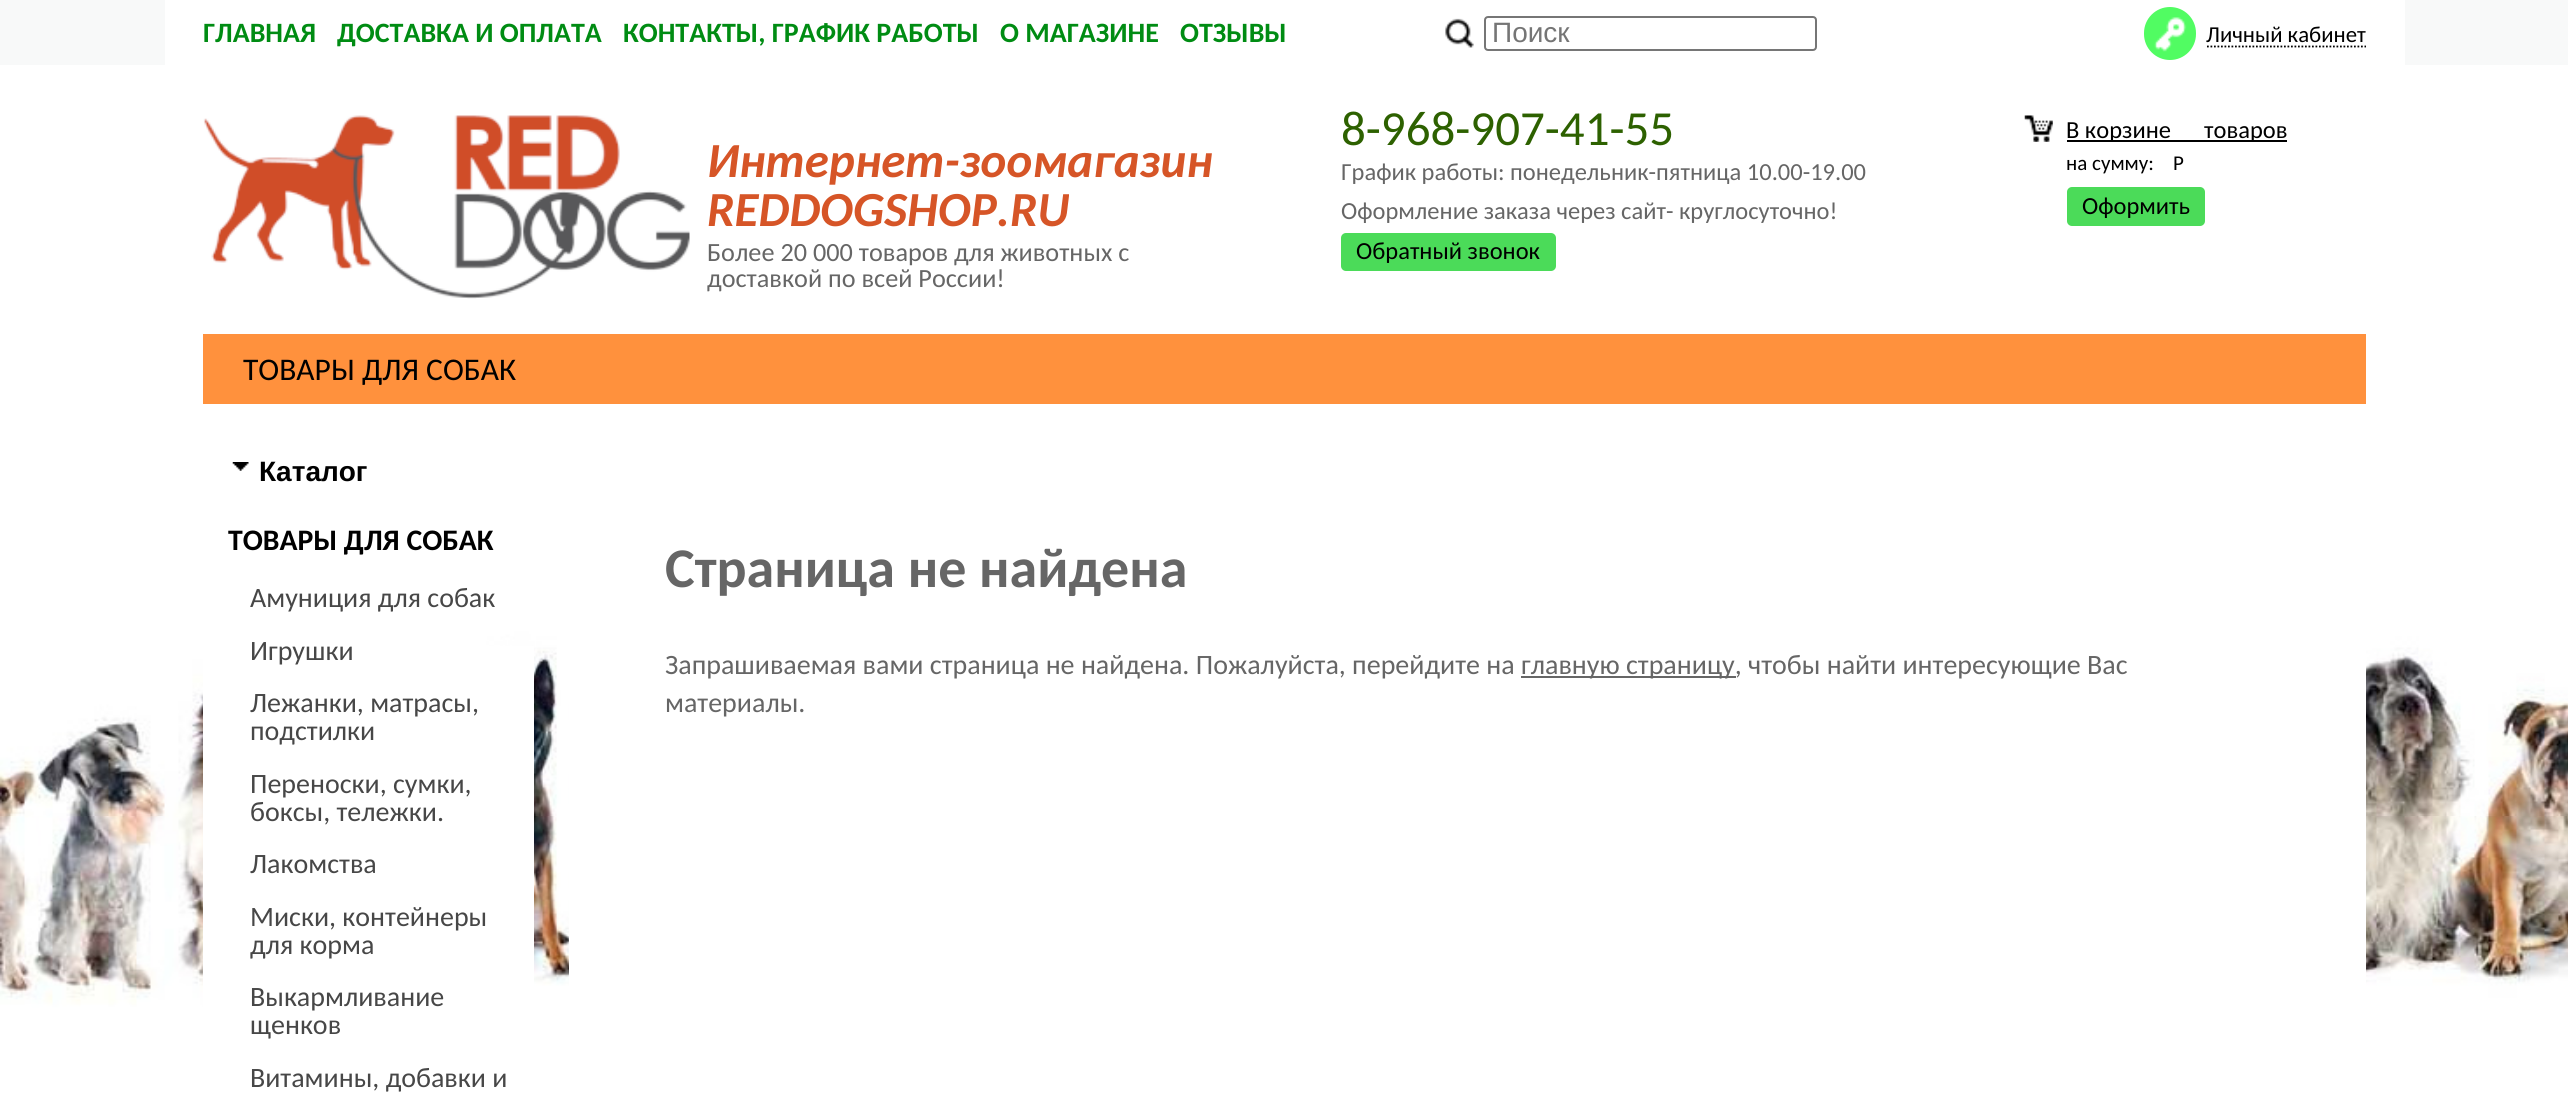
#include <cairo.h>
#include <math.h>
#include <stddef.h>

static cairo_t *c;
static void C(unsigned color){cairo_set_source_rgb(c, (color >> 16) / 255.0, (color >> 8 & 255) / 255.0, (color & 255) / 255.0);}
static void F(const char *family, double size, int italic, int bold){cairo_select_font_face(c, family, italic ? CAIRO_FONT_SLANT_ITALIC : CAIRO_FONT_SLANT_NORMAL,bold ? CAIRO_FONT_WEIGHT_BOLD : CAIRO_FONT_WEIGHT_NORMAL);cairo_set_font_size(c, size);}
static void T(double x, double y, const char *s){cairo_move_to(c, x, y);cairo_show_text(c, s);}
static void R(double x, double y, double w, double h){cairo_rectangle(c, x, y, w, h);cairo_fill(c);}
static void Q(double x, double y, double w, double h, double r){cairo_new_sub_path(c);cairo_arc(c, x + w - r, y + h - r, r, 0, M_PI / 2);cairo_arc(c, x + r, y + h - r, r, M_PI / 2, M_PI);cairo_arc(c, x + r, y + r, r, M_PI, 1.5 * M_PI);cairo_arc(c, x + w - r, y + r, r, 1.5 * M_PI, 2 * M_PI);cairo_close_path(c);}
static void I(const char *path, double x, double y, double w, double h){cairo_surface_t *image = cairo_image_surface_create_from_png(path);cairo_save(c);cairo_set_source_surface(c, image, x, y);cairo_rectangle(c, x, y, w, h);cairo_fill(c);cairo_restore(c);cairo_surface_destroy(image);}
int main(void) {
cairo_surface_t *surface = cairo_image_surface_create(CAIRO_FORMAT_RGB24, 2568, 1106);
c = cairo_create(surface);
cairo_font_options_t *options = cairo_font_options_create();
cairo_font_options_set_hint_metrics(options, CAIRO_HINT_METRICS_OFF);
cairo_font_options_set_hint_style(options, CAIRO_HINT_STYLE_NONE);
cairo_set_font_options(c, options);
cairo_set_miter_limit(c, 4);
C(0xffffff);
cairo_paint(c);
C(0xf8f9f9);
R(0,0,2568,65);
C(0xffffff);
R(165,0,2240,65);
F("Carlito",28,0,1);
C(0x008c13);
T(203,42,"ГЛАВНАЯ");
T(337,42,"ДОСТАВКА И ОПЛАТА");
T(623,42,"КОНТАКТЫ, ГРАФИК РАБОТЫ");
T(1000,42,"О МАГАЗИНЕ");
T(1180,42,"ОТЗЫВЫ");
I("1.png",1445,18,29,30);
Q(1485,17,331,33,3);
C(0x767676);
cairo_stroke(c);
F("Liberation Sans",28,0,0);
C(0x757575);
T(1492,42,"Поиск");
C(0x51fc62);
Q(2144,7,52,53,26);
cairo_fill(c);
I("2.png",2154,17,33,35);
cairo_new_path(c);
cairo_move_to(c,2207,46.5);
cairo_line_to(c,2366,46.5);
C(0x000000);
cairo_set_line_width(c,1.8);
cairo_set_dash(c,(double[]){1.75,1.75},2,0);
cairo_stroke(c);
F("Carlito",22.75,0,0);
T(2206,42,"Личный кабинет");
I("3.png",203,115,487,184);
F("Carlito",49,1,1);
C(0xd65527);
T(707,177,"Интернет-зоомагазин");
T(707,226,"REDDOGSHOP.RU");
F("Carlito",26.25,0,0);
C(0x666666);
T(707,261,"Более 20 000 товаров для животных с");
T(707,287,"доставкой по всей России!");
F("Carlito",49,0,0);
C(0x2d6100);
T(1341,145,"8-968-907-41-55");
F("Carlito",24.5,0,0);
C(0x666666);
T(1341,180,"График работы: понедельник-пятница 10.00-19.00");
T(1341,219,"Оформление заказа через сайт- круглосуточно!");
C(0x4bdb59);
Q(1341,233,215,38,5);
cairo_fill(c);
C(0x000000);
T(1356,259,"Обратный звонок");
I("4.png",2024,115,29,27);
R(2067,140,220,2);
T(2066,138,"В корзине");
T(2204,138,"товаров");
F("Carlito",21,0,0);
T(2066,170,"на сумму:");
T(2173,170,"Р");
C(0x4bdb59);
Q(2067,187,138,39,5);
cairo_fill(c);
F("Carlito",24.5,0,0);
C(0x000000);
T(2082,214,"Оформить");
C(0xff913d);
R(203,334,2163,70);
F("Carlito",31.5,0,0);
C(0x000000);
T(243,380,"ТОВАРЫ ДЛЯ СОБАК");
I("5.png",0,521,2568,487);
C(0xffffff);
R(203,646,331,362);
I("6.png",232,462,17,9);
F("Liberation Sans",28,0,1);
C(0x000000);
T(259,481,"Каталог");
F("Carlito",29.75,0,1);
T(228,550,"ТОВАРЫ ДЛЯ СОБАК");
F("Carlito",28,0,0);
C(0x474747);
T(250,607,"Амуниция для собак");
T(250,660,"Игрушки");
T(250,712,"Лежанки, матрасы,");
T(250,740,"подстилки");
T(250,793,"Переноски, сумки,");
T(250,821,"боксы, тележки.");
T(250,873,"Лакомства");
T(250,926,"Миски, контейнеры");
T(250,954,"для корма");
T(250,1006,"Выкармливание");
T(250,1034,"щенков");
T(250,1087,"Витамины, добавки и");
C(0xffffff);
R(569,521,1797,487);
F("Carlito",56,0,1);
C(0x666666);
T(665,587,"Страница не найдена");
F("Carlito",28,0,0);
T(665,674,"Запрашиваемая вами страница не найдена. Пожалуйста, перейдите на");
R(1521,676,215,2);
T(1521,674,"главную страницу, чтобы найти интересующие Вас");
T(665,712,"материалы.");
cairo_surface_write_to_png(surface, "o.png");
cairo_font_options_destroy(options);
cairo_destroy(c);
cairo_surface_destroy(surface);
return 0;
}
